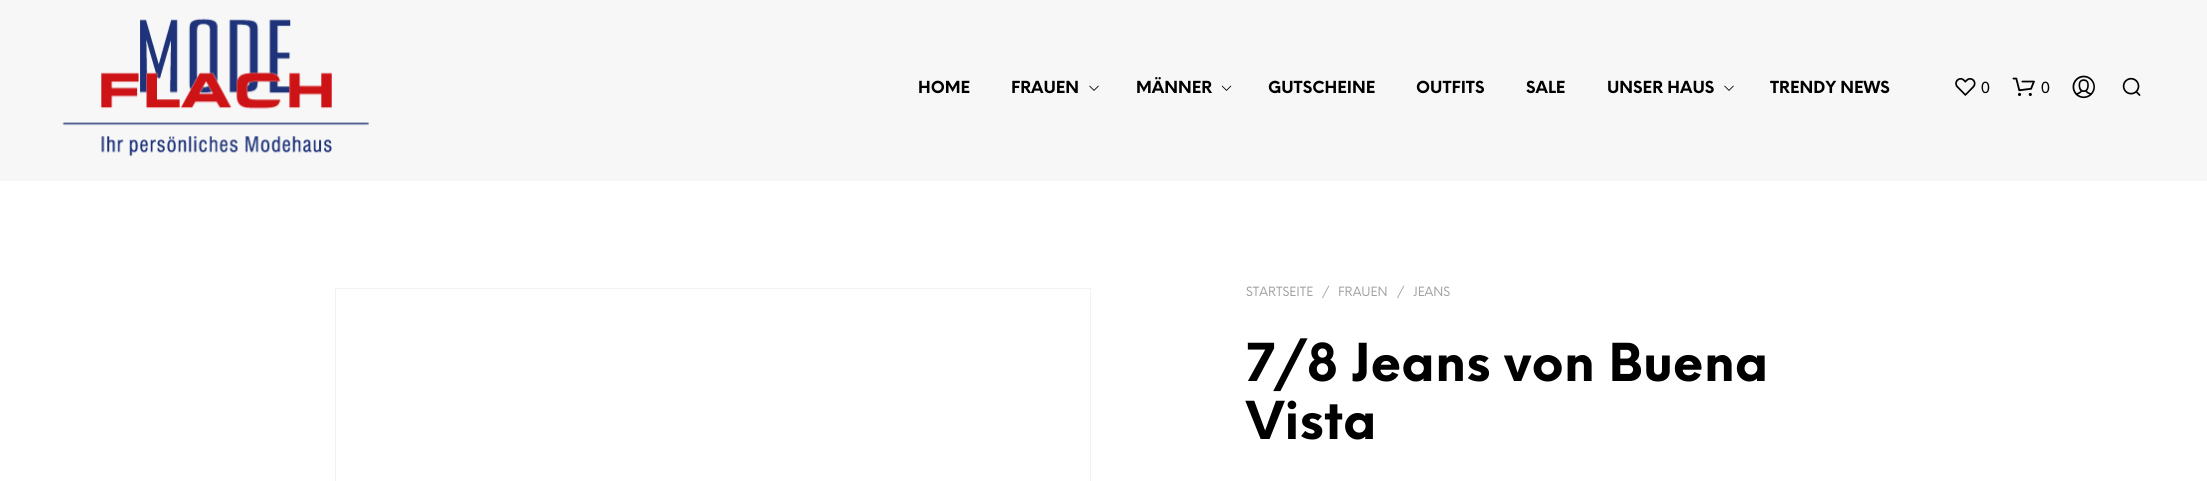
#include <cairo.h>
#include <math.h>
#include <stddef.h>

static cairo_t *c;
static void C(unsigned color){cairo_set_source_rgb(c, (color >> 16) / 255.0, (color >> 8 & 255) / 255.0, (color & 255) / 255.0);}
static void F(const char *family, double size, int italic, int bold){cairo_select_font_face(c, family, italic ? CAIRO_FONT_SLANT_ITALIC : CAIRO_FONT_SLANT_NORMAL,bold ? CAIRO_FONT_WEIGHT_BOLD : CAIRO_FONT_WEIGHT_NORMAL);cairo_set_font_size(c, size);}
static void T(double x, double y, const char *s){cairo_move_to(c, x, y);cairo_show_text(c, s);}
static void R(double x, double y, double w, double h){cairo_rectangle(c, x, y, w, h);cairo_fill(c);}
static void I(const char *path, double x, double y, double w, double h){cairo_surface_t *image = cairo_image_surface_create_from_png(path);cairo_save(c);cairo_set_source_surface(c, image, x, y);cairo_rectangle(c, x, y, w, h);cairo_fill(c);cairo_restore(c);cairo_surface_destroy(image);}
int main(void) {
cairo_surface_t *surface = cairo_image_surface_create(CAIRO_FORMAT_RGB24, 2207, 481);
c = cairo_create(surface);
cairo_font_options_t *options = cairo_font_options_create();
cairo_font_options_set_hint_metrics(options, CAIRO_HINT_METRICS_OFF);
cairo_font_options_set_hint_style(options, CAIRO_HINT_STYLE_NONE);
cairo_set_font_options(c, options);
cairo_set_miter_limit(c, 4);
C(0xffffff);
cairo_paint(c);
C(0xf7f7f7);
R(0,0,2207,181);
I("1.png",62,18,307,139);
F("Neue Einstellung",16.25,0,1);
C(0x000000);
T(918,93,"HOME");
T(1011,93,"FRAUEN");
I("2.png",1089,85,10,6);
T(1136,93,"MÄNNER");
I("3.png",1221,85,11,6);
T(1268,93,"GUTSCHEINE");
T(1416,93,"OUTFITS");
T(1526,93,"SALE");
T(1607,93,"UNSER HAUS");
I("2.png",1724,85,10,6);
T(1770,93,"TRENDY NEWS");
I("4.png",1955,78,21,18);
F("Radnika",16.25,0,0);
T(1981,93,"0");
I("5.png",2012,77,23,19);
T(2041,93,"0");
I("6.png",2072,75,23,24);
I("7.png",2122,77,19,19);
cairo_rectangle(c,335.5,288.5,755,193);
C(0xf2f2f2);
cairo_set_line_width(c,1);
cairo_stroke(c);
F("Neue Einstellung",12.5,0,0);
C(0xa1a1a1);
T(1246,296,"STARTSEITE");
T(1322,296,"/");
T(1338,296,"FRAUEN");
T(1397,296,"/");
T(1413,296,"JEANS");
F("Neue Einstellung",51,0,1);
C(0x000000);
T(1246,381,"7/8 Jeans von Buena");
T(1246,439,"Vista");
cairo_surface_write_to_png(surface, "o.png");
cairo_font_options_destroy(options);
cairo_destroy(c);
cairo_surface_destroy(surface);
return 0;
}
